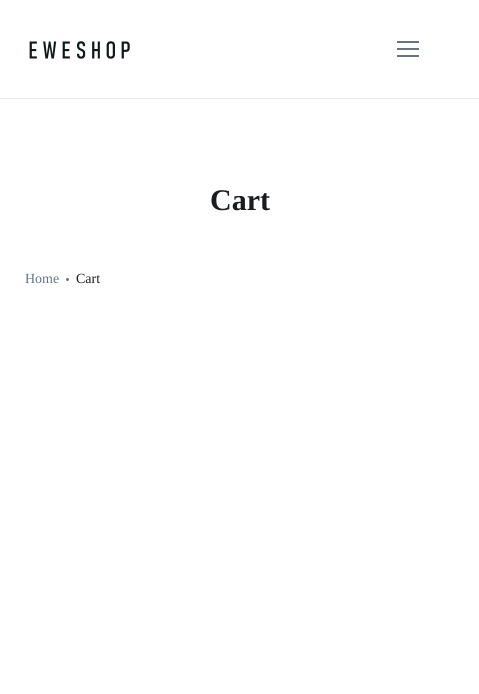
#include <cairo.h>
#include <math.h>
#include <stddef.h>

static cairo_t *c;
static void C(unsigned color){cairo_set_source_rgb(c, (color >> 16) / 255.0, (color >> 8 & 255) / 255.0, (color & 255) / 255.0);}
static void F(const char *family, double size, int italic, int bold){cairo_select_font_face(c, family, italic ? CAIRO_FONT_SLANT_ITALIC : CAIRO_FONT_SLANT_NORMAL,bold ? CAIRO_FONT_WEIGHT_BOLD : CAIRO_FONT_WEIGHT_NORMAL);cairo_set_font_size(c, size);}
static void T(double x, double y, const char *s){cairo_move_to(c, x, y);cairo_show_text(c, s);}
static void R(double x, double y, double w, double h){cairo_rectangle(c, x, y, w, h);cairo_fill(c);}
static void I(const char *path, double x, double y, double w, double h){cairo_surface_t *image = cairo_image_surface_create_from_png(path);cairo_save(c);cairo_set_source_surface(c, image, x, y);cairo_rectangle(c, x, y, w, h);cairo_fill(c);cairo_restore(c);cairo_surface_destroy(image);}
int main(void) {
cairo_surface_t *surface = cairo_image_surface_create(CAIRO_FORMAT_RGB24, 479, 694);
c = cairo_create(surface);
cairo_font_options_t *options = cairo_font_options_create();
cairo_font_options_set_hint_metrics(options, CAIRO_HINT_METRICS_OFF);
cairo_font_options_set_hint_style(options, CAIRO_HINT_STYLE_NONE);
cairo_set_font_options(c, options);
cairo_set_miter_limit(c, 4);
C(0xffffff);
cairo_paint(c);
C(0xe7e8eb);
R(0,98,479,1);
I("1.png",29,41,101,18);
C(0x69747f);
R(397,48,22,2);
R(397,41,22,2);
R(397,55,22,2);
F("Liberation Serif",30,0,1);
C(0x1a1d20);
T(210,210,"Cart");
F("Liberation Serif",14,0,0);
C(0x69747f);
T(25,283,"Home");
cairo_new_path(c);
cairo_arc(c,67.5,279.5,1.5,0,2 * M_PI);
cairo_fill(c);
C(0x1a1d20);
T(76,283,"Cart");
cairo_surface_write_to_png(surface, "o.png");
cairo_font_options_destroy(options);
cairo_destroy(c);
cairo_surface_destroy(surface);
return 0;
}
